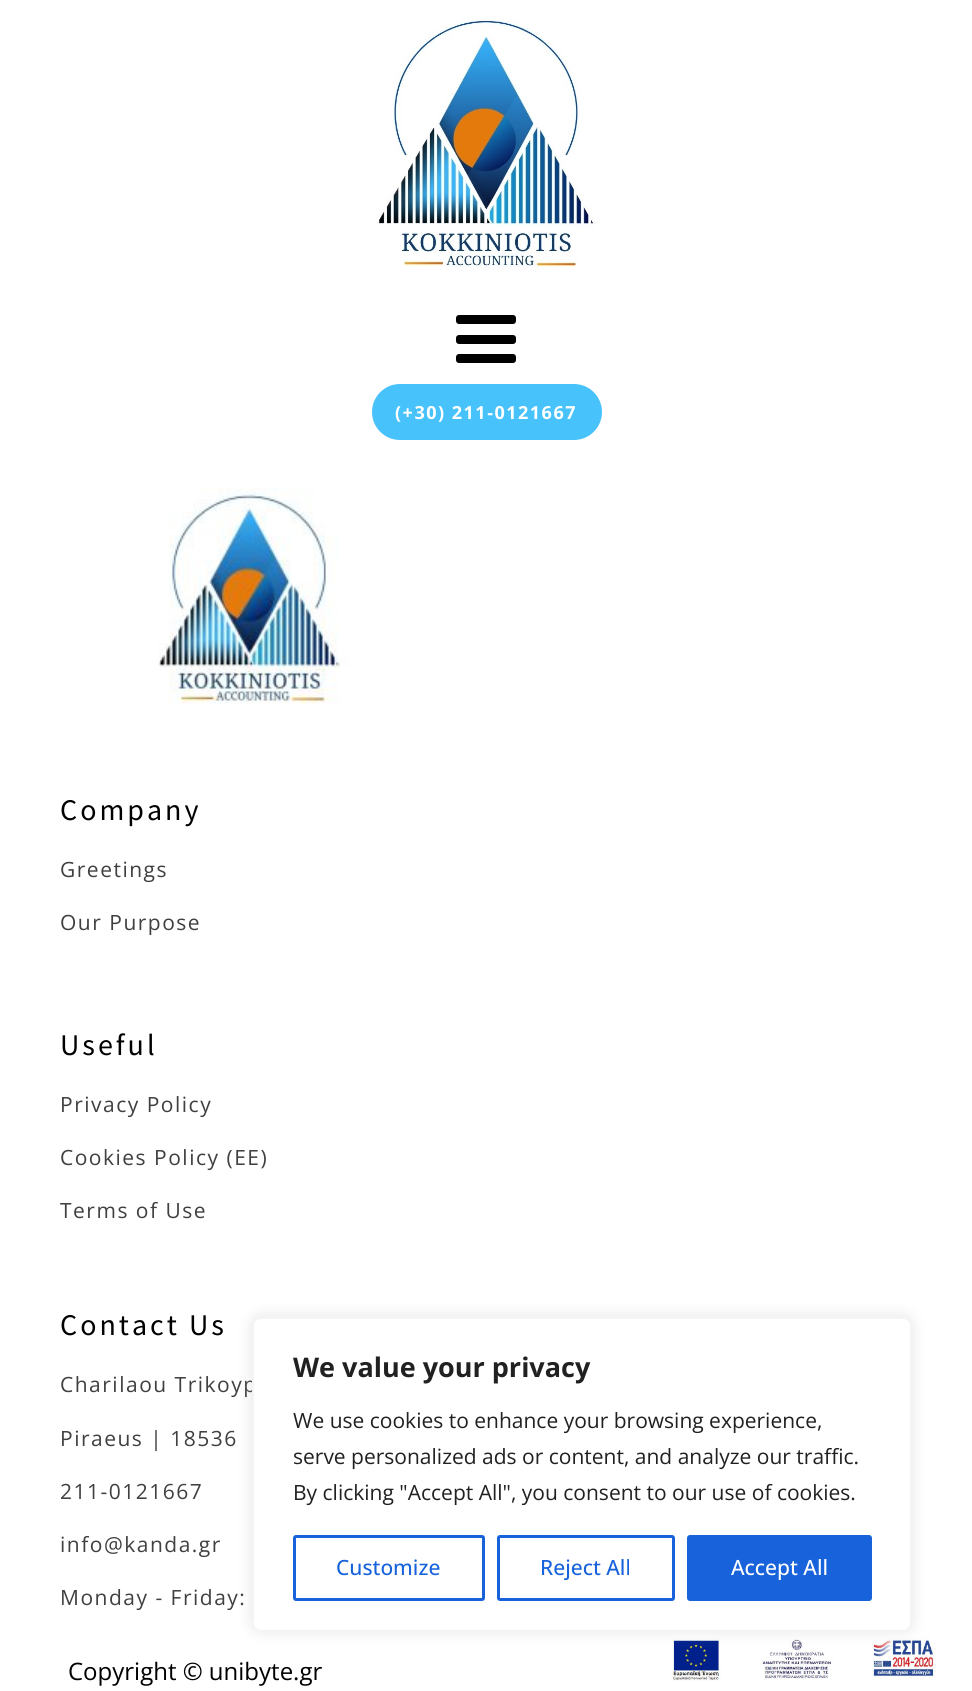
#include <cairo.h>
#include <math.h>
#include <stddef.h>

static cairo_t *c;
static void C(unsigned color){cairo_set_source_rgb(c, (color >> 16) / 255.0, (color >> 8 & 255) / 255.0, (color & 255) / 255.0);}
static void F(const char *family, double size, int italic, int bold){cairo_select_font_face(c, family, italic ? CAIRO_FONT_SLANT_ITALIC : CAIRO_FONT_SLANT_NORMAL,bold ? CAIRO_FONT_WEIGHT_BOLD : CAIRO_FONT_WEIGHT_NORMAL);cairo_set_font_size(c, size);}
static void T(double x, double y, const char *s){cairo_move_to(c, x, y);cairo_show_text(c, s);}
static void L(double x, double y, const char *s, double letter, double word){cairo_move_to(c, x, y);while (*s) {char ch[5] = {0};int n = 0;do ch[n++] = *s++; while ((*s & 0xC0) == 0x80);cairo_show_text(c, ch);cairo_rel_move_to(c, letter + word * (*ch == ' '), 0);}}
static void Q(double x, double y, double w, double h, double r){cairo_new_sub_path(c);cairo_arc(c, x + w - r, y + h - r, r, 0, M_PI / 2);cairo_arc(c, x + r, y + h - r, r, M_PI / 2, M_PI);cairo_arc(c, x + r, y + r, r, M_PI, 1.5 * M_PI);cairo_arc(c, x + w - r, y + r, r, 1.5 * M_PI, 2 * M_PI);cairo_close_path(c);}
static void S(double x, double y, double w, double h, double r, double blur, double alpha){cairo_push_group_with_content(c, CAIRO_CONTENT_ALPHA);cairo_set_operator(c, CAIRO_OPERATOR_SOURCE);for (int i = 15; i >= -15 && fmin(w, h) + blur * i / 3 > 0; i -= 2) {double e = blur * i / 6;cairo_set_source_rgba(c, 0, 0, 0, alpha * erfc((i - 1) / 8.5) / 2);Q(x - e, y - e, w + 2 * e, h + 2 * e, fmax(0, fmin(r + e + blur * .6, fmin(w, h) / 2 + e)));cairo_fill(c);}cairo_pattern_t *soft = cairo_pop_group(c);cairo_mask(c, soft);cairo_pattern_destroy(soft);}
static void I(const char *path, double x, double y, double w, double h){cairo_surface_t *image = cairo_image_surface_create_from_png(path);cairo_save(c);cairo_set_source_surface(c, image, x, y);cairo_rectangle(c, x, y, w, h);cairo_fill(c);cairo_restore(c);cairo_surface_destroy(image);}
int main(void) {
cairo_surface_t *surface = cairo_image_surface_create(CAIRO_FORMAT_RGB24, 972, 1691);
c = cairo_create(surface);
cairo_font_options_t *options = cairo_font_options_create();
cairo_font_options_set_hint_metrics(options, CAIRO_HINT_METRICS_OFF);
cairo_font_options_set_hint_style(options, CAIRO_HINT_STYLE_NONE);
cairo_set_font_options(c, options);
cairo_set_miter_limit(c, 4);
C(0xffffff);
cairo_paint(c);
I("1.png",377,15,219,253);
C(0x000000);
Q(456,315,60,9,3);
cairo_fill(c);
Q(456,335,60,9,3);
cairo_fill(c);
Q(456,354,60,9,3);
cairo_fill(c);
C(0x48c2fb);
Q(372,384,230,56,28);
cairo_fill(c);
F("Open Sans",18,0,1);
C(0xffffff);
L(395,419,"(+30) 211-0121667",1.5,0);
I("2.png",158,487,190,218);
F("Source Sans Pro",30,0,0);
C(0x000000);
L(60,820,"Company",3,0);
F("Open Sans",21,0,0);
C(0x404040);
L(60,877,"Greetings",1.5,0);
L(60,930,"Our Purpose",1.5,0);
F("Source Sans Pro",30,0,0);
C(0x000000);
L(60,1055,"Useful",3,0);
F("Open Sans",21,0,0);
C(0x404040);
L(60,1112,"Privacy Policy",1.5,0);
L(60,1165,"Cookies Policy (EE)",1.5,0);
L(60,1218,"Terms of Use",1.5,0);
F("Source Sans Pro",30,0,0);
C(0x000000);
L(60,1335,"Contact Us",3,0);
F("Open Sans",21,0,0);
C(0x404040);
L(60,1392,"Charilaou Trikoyp",1.5,0);
L(60,1446,"Piraeus | 18536",1.5,0);
L(60,1499,"211-0121667",1.5,0);
L(60,1552,"info@kanda.gr",1.5,0);
L(60,1605,"Monday - Friday:",1.5,0);
F("Open Sans",24,0,0);
C(0x000000);
T(68,1680,"Copyright © unibyte.gr");
I("3.png",670,1636,265,45);
C(0xacabab);
S(252,1316,660,315,9,7.5,.3);
C(0xffffff);
Q(253,1318,658,313,8);
cairo_fill_preserve(c);
C(0xf4f4f4);
cairo_stroke(c);
F("Open Sans",27,0,1);
C(0x212121);
T(293,1377,"We value your privacy");
F("Open Sans",21,0,0);
T(293,1428,"We use cookies to enhance your browsing experience,");
T(293,1464,"serve personalized ads or content, and analyze our traffic.");
T(293,1500,"By clicking \"Accept All\", you consent to our use of cookies.");
Q(294.5,1536.5,189,63,1.5);
C(0x1863dc);
cairo_set_line_width(c,3);
cairo_stroke(c);
F("Open Sans Medium",21,0,0);
T(336,1575,"Customize");
Q(498.5,1536.5,175,63,1.5);
cairo_stroke(c);
T(540,1575,"Reject All");
Q(688.5,1536.5,182,63,1.5);
cairo_fill_preserve(c);
cairo_stroke(c);
C(0xffffff);
T(731,1575,"Accept All");
cairo_surface_write_to_png(surface, "o.png");
cairo_font_options_destroy(options);
cairo_destroy(c);
cairo_surface_destroy(surface);
return 0;
}
